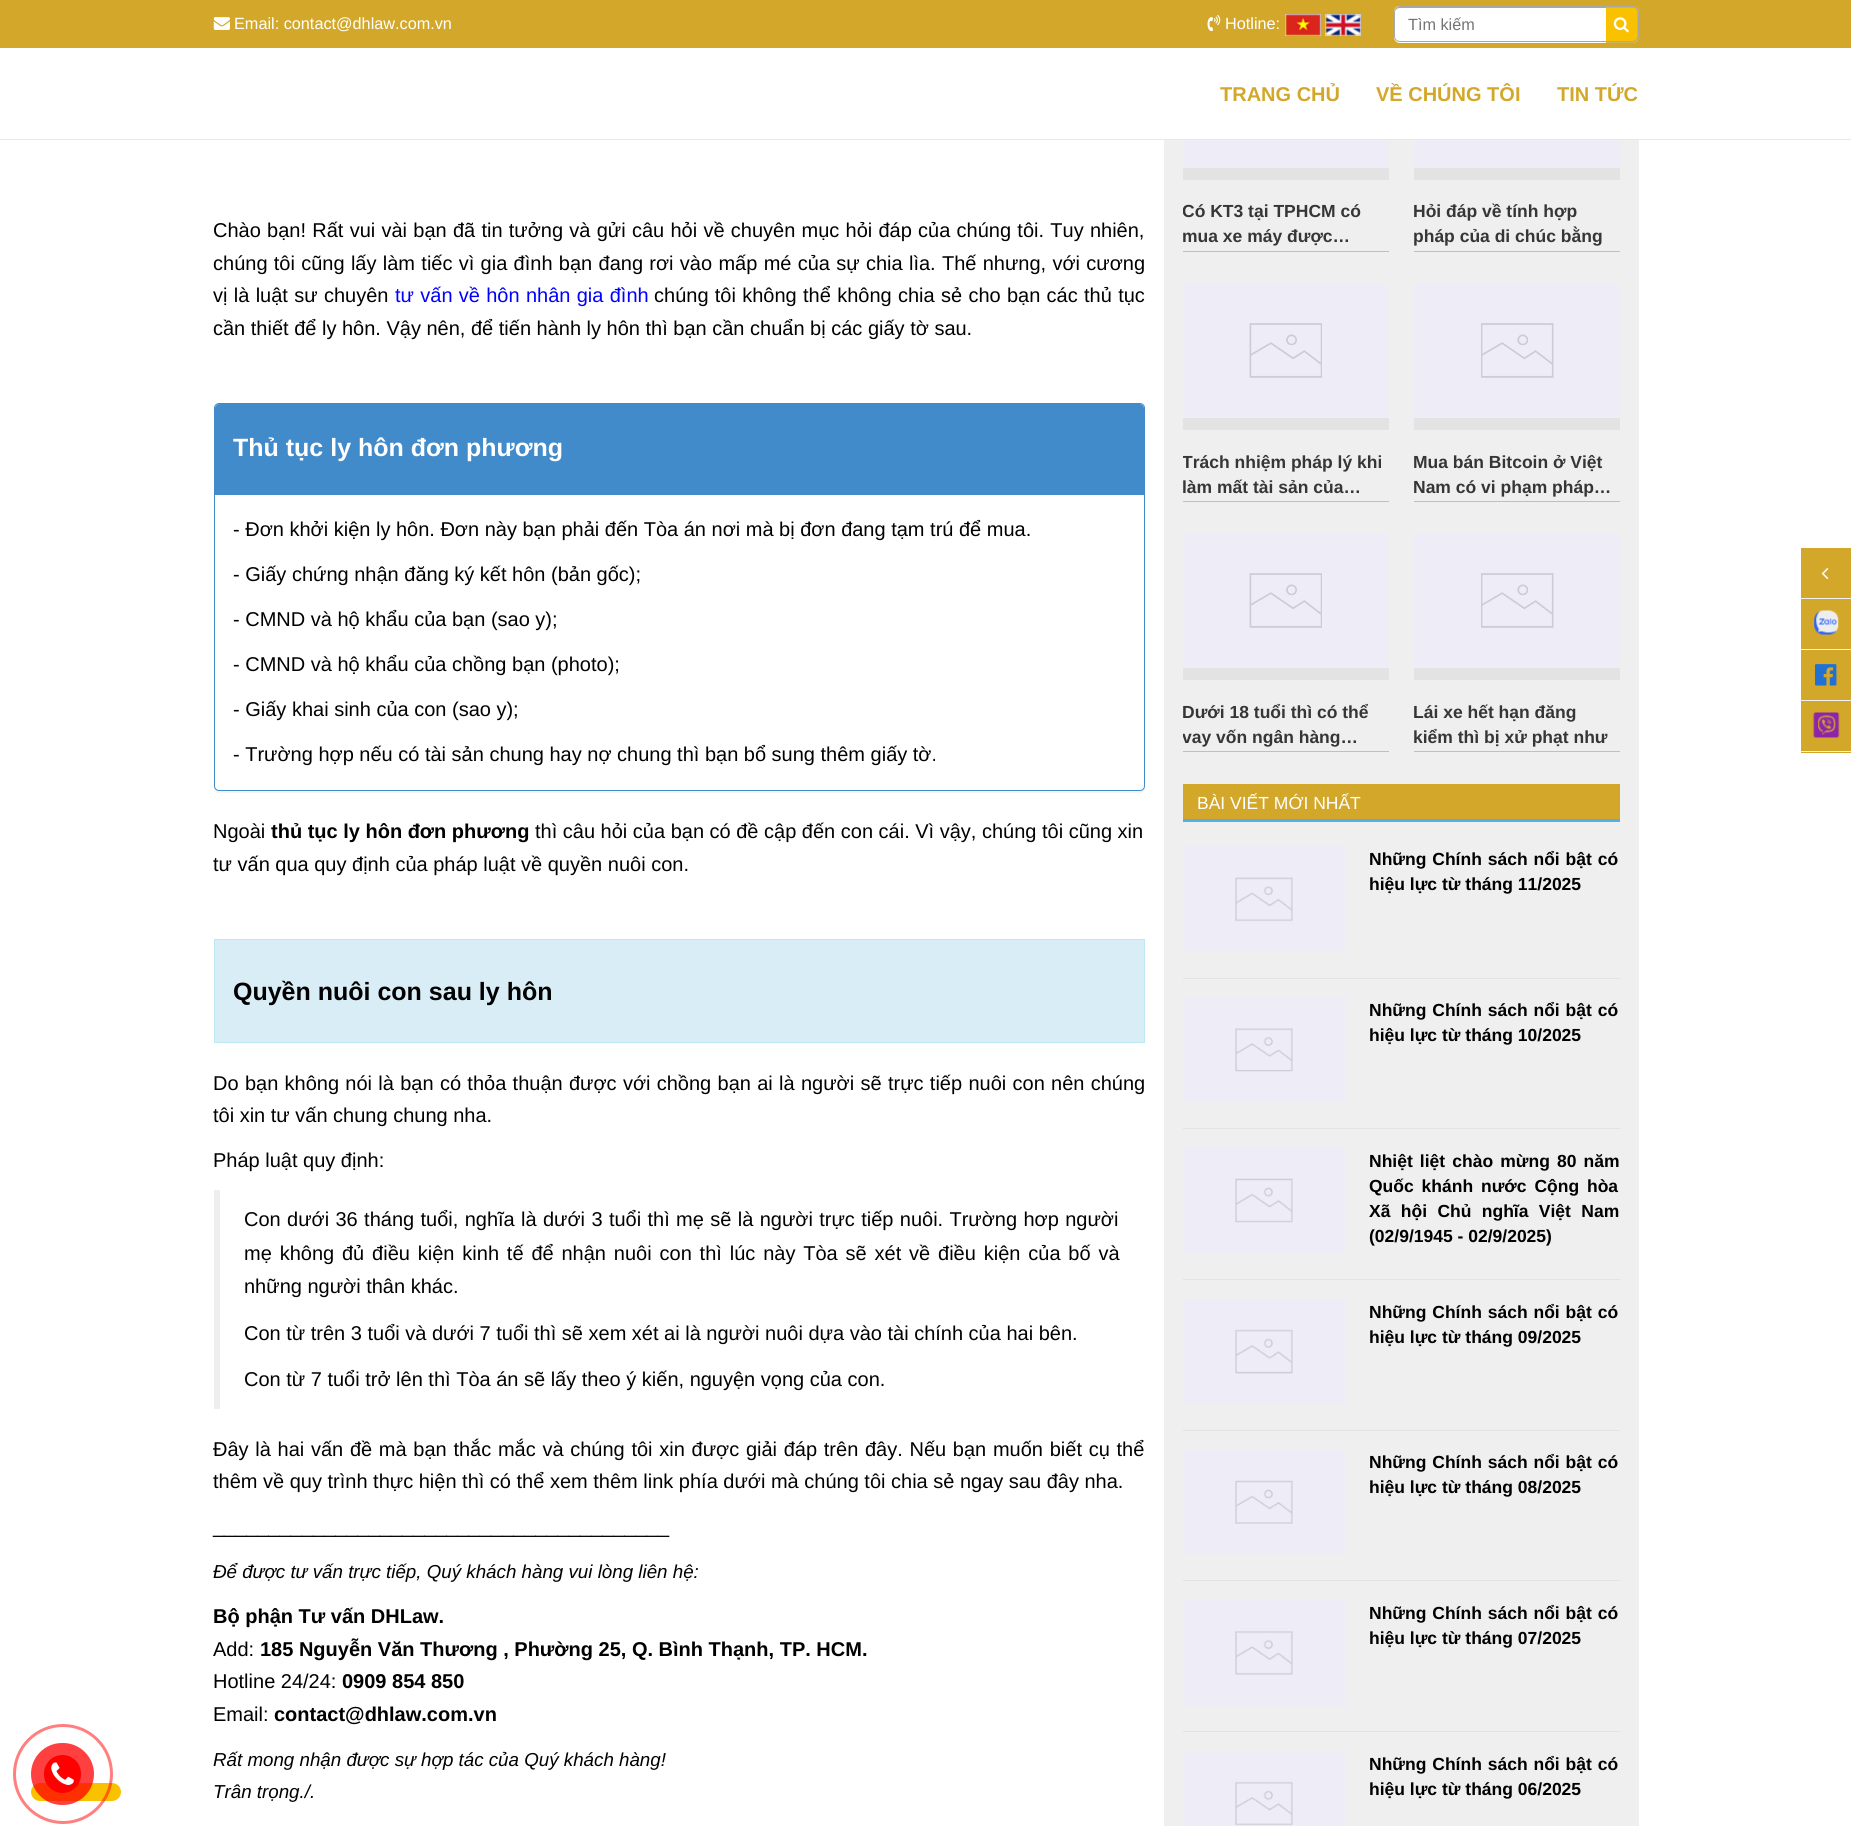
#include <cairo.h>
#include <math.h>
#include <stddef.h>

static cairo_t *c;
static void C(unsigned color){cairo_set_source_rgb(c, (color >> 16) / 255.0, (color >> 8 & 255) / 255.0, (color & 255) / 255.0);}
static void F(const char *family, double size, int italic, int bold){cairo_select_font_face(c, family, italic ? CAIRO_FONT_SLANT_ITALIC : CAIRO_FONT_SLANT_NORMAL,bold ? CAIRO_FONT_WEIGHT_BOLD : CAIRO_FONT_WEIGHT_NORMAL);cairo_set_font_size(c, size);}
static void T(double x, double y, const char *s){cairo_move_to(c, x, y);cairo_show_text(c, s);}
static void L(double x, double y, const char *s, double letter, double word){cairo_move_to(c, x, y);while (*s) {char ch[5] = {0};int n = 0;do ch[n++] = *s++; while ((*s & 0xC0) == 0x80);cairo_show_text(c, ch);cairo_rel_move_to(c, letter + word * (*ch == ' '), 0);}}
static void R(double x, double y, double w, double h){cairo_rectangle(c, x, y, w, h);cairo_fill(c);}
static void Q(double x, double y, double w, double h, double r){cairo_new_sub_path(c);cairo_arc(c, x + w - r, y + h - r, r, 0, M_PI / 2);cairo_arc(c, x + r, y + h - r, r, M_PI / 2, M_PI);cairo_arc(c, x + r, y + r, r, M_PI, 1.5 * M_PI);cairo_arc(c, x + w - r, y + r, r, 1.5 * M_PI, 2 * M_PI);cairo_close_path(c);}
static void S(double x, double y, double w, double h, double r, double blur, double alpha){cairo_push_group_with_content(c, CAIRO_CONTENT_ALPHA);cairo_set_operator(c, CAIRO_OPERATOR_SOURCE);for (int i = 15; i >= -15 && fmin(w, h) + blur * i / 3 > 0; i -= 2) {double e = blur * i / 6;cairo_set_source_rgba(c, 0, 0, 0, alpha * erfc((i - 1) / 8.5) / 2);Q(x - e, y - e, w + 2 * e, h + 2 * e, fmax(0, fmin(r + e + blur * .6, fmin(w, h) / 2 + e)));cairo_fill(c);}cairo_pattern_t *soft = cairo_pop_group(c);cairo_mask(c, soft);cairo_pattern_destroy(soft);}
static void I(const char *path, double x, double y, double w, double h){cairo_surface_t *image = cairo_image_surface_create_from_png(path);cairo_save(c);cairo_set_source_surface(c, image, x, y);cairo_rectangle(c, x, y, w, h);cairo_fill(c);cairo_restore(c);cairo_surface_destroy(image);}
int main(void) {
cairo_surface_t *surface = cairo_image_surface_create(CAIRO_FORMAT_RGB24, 1851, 1826);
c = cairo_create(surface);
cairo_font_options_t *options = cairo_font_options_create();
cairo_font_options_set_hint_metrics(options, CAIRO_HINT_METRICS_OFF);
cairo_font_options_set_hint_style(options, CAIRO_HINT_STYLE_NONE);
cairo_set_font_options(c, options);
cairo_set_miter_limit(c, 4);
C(0xffffff);
cairo_paint(c);
C(0xe7e7e7);
R(0,139,1851,1);
C(0xd3a82a);
R(0,0,1851,48);
I("1.png",213,17,17,13);
F("Liberation Sans",16.25,0,0);
C(0xffffff);
T(234,29,"Email: contact@dhlaw.com.vn");
I("2.png",1207,15,14,17);
T(1225,29,"Hotline:");
cairo_rectangle(c,1285.5,14.5,35,21);
C(0xcccccc);
cairo_set_line_width(c,1);
cairo_stroke(c);
I("3.png",1285,14,36,22);
cairo_rectangle(c,1325.5,14.5,35,21);
cairo_stroke(c);
I("4.png",1325,14,36,22);
C(0xffffff);
cairo_new_path(c);
cairo_move_to(c,1400,6);
cairo_line_to(c,1606,6);
cairo_line_to(c,1606,43);
cairo_line_to(c,1400,43);
cairo_curve_to(c,1396.5,43,1394,40.5,1394,37);
cairo_line_to(c,1394,12);
cairo_curve_to(c,1394,8.5,1396.5,6,1400,6);
cairo_close_path(c);
cairo_fill(c);
C(0xa8a8a8);
cairo_set_fill_rule(c,CAIRO_FILL_RULE_EVEN_ODD);
cairo_new_path(c);
cairo_move_to(c,1400,6);
cairo_line_to(c,1606,6);
cairo_line_to(c,1606,42);
cairo_line_to(c,1400,42);
cairo_curve_to(c,1397,42,1394,40,1394,36);
cairo_line_to(c,1394,12);
cairo_curve_to(c,1394,9,1397,6,1400,6);
cairo_close_path(c);
cairo_move_to(c,1400,8);
cairo_line_to(c,1606,8);
cairo_line_to(c,1606,41);
cairo_line_to(c,1400,41);
cairo_curve_to(c,1397,41,1395,39,1395,36);
cairo_line_to(c,1395,12);
cairo_curve_to(c,1395,10,1397,8,1400,8);
cairo_close_path(c);
cairo_fill(c);
C(0x757575);
T(1408,30,"Tìm kiếm");
C(0xfac100);
cairo_new_path(c);
cairo_move_to(c,1606,6);
cairo_line_to(c,1633,6);
cairo_curve_to(c,1636.5,6,1639,8.5,1639,12);
cairo_line_to(c,1639,37);
cairo_curve_to(c,1639,40.5,1636.5,43,1633,43);
cairo_line_to(c,1606,43);
cairo_close_path(c);
cairo_fill(c);
C(0xa8a8a8);
cairo_new_path(c);
cairo_move_to(c,1606,6);
cairo_line_to(c,1632.5,6);
cairo_curve_to(c,1636,6,1639,9,1639,12.5);
cairo_line_to(c,1639,36);
cairo_curve_to(c,1639,39.5,1636,42.5,1632.5,42.5);
cairo_line_to(c,1606,42.5);
cairo_close_path(c);
cairo_move_to(c,1606,7.5);
cairo_line_to(c,1632.5,7.5);
cairo_curve_to(c,1635.5,7.5,1637.5,9.5,1637.5,12.5);
cairo_line_to(c,1637.5,36);
cairo_curve_to(c,1637.5,39,1635.5,41,1632.5,41);
cairo_line_to(c,1606,41);
cairo_close_path(c);
cairo_fill(c);
I("5.png",1613,17,16,16);
F("Liberation Sans",20,0,1);
C(0xd3a82a);
T(1220,101,"TRANG CHỦ");
T(1376,101,"VỀ CHÚNG TÔI");
T(1557,101,"TIN TỨC");
F("Liberation Sans",20,0,0);
C(0x000000);
L(213,237,"Chào bạn! Rất vui vài bạn đã tin tưởng và gửi câu hỏi về chuyên mục hỏi đáp của chúng tôi. Tuy nhiên,",0,.7);
L(213,270,"chúng tôi cũng lấy làm tiếc vì gia đình bạn đang rơi vào mấp mé của sự chia lìa. Thế nhưng, với cương",0,.75);
L(213,302,"vị là luật sư chuyên",0,.75);
C(0x0000ff);
L(395,302,"tư vấn về hôn nhân gia đình",0,.75);
C(0x000000);
L(654,302,"chúng tôi không thể không chia sẻ cho bạn các thủ tục",0,.75);
T(213,335,"cần thiết để ly hôn. Vậy nên, để tiến hành ly hôn thì bạn cần chuẩn bị các giấy tờ sau.");
C(0x000000);
S(214,404,931,389,5,.5,.05);
C(0xffffff);
Q(214.5,403.5,930,387,4.5);
cairo_fill_preserve(c);
C(0x428bca);
cairo_stroke(c);
cairo_new_path(c);
cairo_move_to(c,219,404);
cairo_line_to(c,1140,404);
cairo_curve_to(c,1142,404,1144,406,1144,408);
cairo_line_to(c,1144,495);
cairo_line_to(c,215,495);
cairo_line_to(c,215,408);
cairo_curve_to(c,215,406,217,404,219,404);
cairo_close_path(c);
cairo_fill(c);
F("Liberation Sans",25,0,1);
C(0xffffff);
T(233,456,"Thủ tục ly hôn đơn phương");
F("Liberation Sans",20,0,0);
C(0x000000);
T(233,536,"- Đơn khởi kiện ly hôn. Đơn này bạn phải đến Tòa án nơi mà bị đơn đang tạm trú để mua.");
T(233,581,"- Giấy chứng nhận đăng ký kết hôn (bản gốc);");
T(233,626,"- CMND và hộ khẩu của bạn (sao y);");
T(233,671,"- CMND và hộ khẩu của chồng bạn (photo);");
T(233,716,"- Giấy khai sinh của con (sao y);");
T(233,761,"- Trường hợp nếu có tài sản chung hay nợ chung thì bạn bổ sung thêm giấy tờ.");
T(213,838,"Ngoài");
F("Liberation Sans",20,0,1);
T(271,838,"thủ tục ly hôn đơn phương");
F("Liberation Sans",20,0,0);
T(535,838,"thì câu hỏi của bạn có đề cập đến con cái. Vì vậy, chúng tôi cũng xin");
T(213,871,"tư vấn qua quy định của pháp luật về quyền nuôi con.");
C(0xd9edf7);
cairo_rectangle(c,214.5,939.5,930,103);
cairo_fill_preserve(c);
C(0xbce8f1);
cairo_stroke(c);
F("Liberation Sans",25,0,1);
C(0x000000);
T(233,1000,"Quyền nuôi con sau ly hôn");
F("Liberation Sans",20,0,0);
L(213,1090,"Do bạn không nói là bạn có thỏa thuận được với chồng bạn ai là người sẽ trực tiếp nuôi con nên chúng",0,.75);
T(213,1122,"tôi xin tư vấn chung chung nha.");
T(213,1167,"Pháp luật quy định:");
C(0xeeeeee);
R(214,1190,6,219);
C(0x000000);
L(244,1226,"Con dưới 36 tháng tuổi, nghĩa là dưới 3 tuổi thì mẹ sẽ là người trực tiếp nuôi. Trường hơp người",0,.8);
L(244,1260,"mẹ không đủ điều kiện kinh tế để nhận nuôi con thì lúc này Tòa sẽ xét về điều kiện của bố và",0,2.3);
T(244,1293,"những người thân khác.");
T(244,1340,"Con từ trên 3 tuổi và dưới 7 tuổi thì sẽ xem xét ai là người nuôi dựa vào tài chính của hai bên.");
T(244,1386,"Con từ 7 tuổi trở lên thì Tòa án sẽ lấy theo ý kiến, nguyện vọng của con.");
L(213,1456,"Đây là hai vấn đề mà bạn thắc mắc và chúng tôi xin được giải đáp trên đây. Nếu bạn muốn biết cụ thể",0,1.15);
T(213,1488,"thêm về quy trình thực hiện thì có thể xem thêm link phía dưới mà chúng tôi chia sẻ ngay sau đây nha.");
T(213,1533,"_________________________________________");
F("Liberation Sans",18.75,1,0);
T(213,1578,"Để được tư vấn trực tiếp, Quý khách hàng vui lòng liên hệ:");
F("Liberation Sans",20,0,1);
T(213,1623,"Bộ phận Tư vấn DHLaw.");
F("Liberation Sans",20,0,0);
T(213,1656,"Add:");
F("Liberation Sans",20,0,1);
T(260,1656,"185 Nguyễn Văn Thương , Phường 25, Q. Bình Thạnh, TP. HCM.");
F("Liberation Sans",20,0,0);
T(213,1688,"Hotline 24/24:");
F("Liberation Sans",20,0,1);
T(342,1688,"0909 854 850");
F("Liberation Sans",20,0,0);
T(213,1721,"Email:");
F("Liberation Sans",20,0,1);
T(274,1721,"contact@dhlaw.com.vn");
F("Liberation Sans",18.75,1,0);
T(213,1766,"Rất mong nhận được sự hợp tác của Quý khách hàng!");
T(213,1798,"Trân trọng./.");
C(0xefefef);
R(1164,140,475,1686);
C(0xe3e3e3);
R(1183,168,206,12);
I("6.png",1183,140,205,27);
C(0xbfbfbf);
R(1183,251,206,1);
cairo_save(c);
cairo_set_fill_rule(c,CAIRO_FILL_RULE_WINDING);
cairo_rectangle(c,1183,199,206,52);
cairo_clip(c);
F("Liberation Sans",17.5,0,1);
C(0x363636);
T(1182,217,"Có KT3 tại TPHCM có");
cairo_restore(c);
F("Liberation Sans",17.5,0,1);
C(0x363636);
T(1182,242,"mua xe máy được…");
C(0xe3e3e3);
R(1414,168,206,12);
I("7.png",1414,140,206,27);
C(0xbfbfbf);
R(1414,251,206,1);
C(0x363636);
T(1413,217,"Hỏi đáp về tính hợp");
T(1413,242,"pháp của di chúc bằng");
C(0xe3e3e3);
R(1183,418,206,12);
I("8.png",1183,284,205,133);
C(0xbfbfbf);
R(1183,501,206,1);
cairo_save(c);
cairo_set_fill_rule(c,CAIRO_FILL_RULE_WINDING);
cairo_rectangle(c,1183,449,206,52);
cairo_clip(c);
C(0x363636);
T(1182,468,"Trách nhiệm pháp lý khi");
cairo_restore(c);
C(0x363636);
T(1182,493,"làm mất tài sản của…");
C(0xe3e3e3);
R(1414,418,206,12);
I("9.png",1414,284,206,133);
C(0xbfbfbf);
R(1414,501,206,1);
C(0x363636);
T(1413,468,"Mua bán Bitcoin ở Việt");
T(1413,493,"Nam có vi phạm pháp…");
C(0xe3e3e3);
R(1183,668,206,12);
I("8.png",1183,534,205,133);
C(0xbfbfbf);
R(1183,751,206,1);
C(0x363636);
T(1182,718,"Dưới 18 tuổi thì có thể");
cairo_save(c);
cairo_set_fill_rule(c,CAIRO_FILL_RULE_WINDING);
cairo_rectangle(c,1183,699,206,52);
cairo_clip(c);
T(1182,743,"vay vốn ngân hàng…");
cairo_restore(c);
C(0xe3e3e3);
R(1414,668,206,12);
I("9.png",1414,534,206,133);
C(0xbfbfbf);
R(1414,751,206,1);
C(0x363636);
T(1413,718,"Lái xe hết hạn đăng");
T(1413,743,"kiểm thì bị xử phạt như");
C(0x4db2ec);
R(1183,819,437,3);
C(0xd3a82a);
R(1183,784,437,35);
F("Liberation Sans",17.5,0,0);
C(0xffffff);
T(1197,809,"BÀI VIẾT MỚI NHẤT");
C(0xe3e3e3);
R(1183,978,437,1);
I("10.png",1183,846,162,106);
F("Liberation Sans",17.5,0,1);
C(0x000000);
L(1369,865,"Những Chính sách nổi bật có",0,1);
T(1369,890,"hiệu lực từ tháng 11/2025");
C(0xe3e3e3);
R(1183,1128,437,1);
I("11.png",1183,998,162,104);
C(0x000000);
L(1369,1016,"Những Chính sách nổi bật có",0,1);
T(1369,1041,"hiệu lực từ tháng 10/2025");
C(0xe3e3e3);
R(1183,1279,437,1);
I("12.png",1183,1148,162,105);
C(0x000000);
L(1369,1167,"Nhiệt liệt chào mừng 80 năm",0,2.25);
L(1369,1192,"Quốc khánh nước Cộng hòa",0,3);
L(1369,1217,"Xã hội Chủ nghĩa Việt Nam",0,5.5);
T(1369,1242,"(02/9/1945 - 02/9/2025)");
C(0xe3e3e3);
R(1183,1430,437,1);
I("13.png",1183,1299,162,105);
C(0x000000);
L(1369,1318,"Những Chính sách nổi bật có",0,1);
T(1369,1343,"hiệu lực từ tháng 09/2025");
C(0xe3e3e3);
R(1183,1580,437,1);
I("14.png",1183,1450,162,104);
C(0x000000);
L(1369,1468,"Những Chính sách nổi bật có",0,1);
T(1369,1493,"hiệu lực từ tháng 08/2025");
C(0xe3e3e3);
R(1183,1731,437,1);
I("15.png",1183,1600,162,106);
C(0x000000);
L(1369,1619,"Những Chính sách nổi bật có",0,1);
T(1369,1644,"hiệu lực từ tháng 07/2025");
I("16.png",1183,1751,162,75);
L(1369,1770,"Những Chính sách nổi bật có",0,1);
T(1369,1795,"hiệu lực từ tháng 06/2025");
C(0xd3a82a);
R(1801,548,50,205);
C(0xf2f2f2);
R(1801,598,50,1);
I("17.png",1821,568,8,12);
R(1801,649,50,1);
I("18.png",1814,610,25,25);
R(1801,700,50,1);
I("19.png",1815,664,22,22);
R(1801,751,50,1);
I("20.png",1813,712,27,26);
C(0xfac100);
Q(31,1783,90,18,9);
cairo_fill(c);
cairo_arc(c,63,1774,48.5,0,2 * M_PI);
cairo_set_source_rgba(c,1,0,0,0.5);
cairo_set_line_width(c,3);
cairo_stroke(c);
cairo_set_source_rgba(c,1,0,0,0.75);
Q(31,1743,63,62,31);
cairo_fill(c);
C(0xff0000);
Q(44,1755,37,38,18.5);
cairo_fill(c);
I("21.png",51,1762,23,23);
cairo_surface_write_to_png(surface, "o.png");
cairo_font_options_destroy(options);
cairo_destroy(c);
cairo_surface_destroy(surface);
return 0;
}
